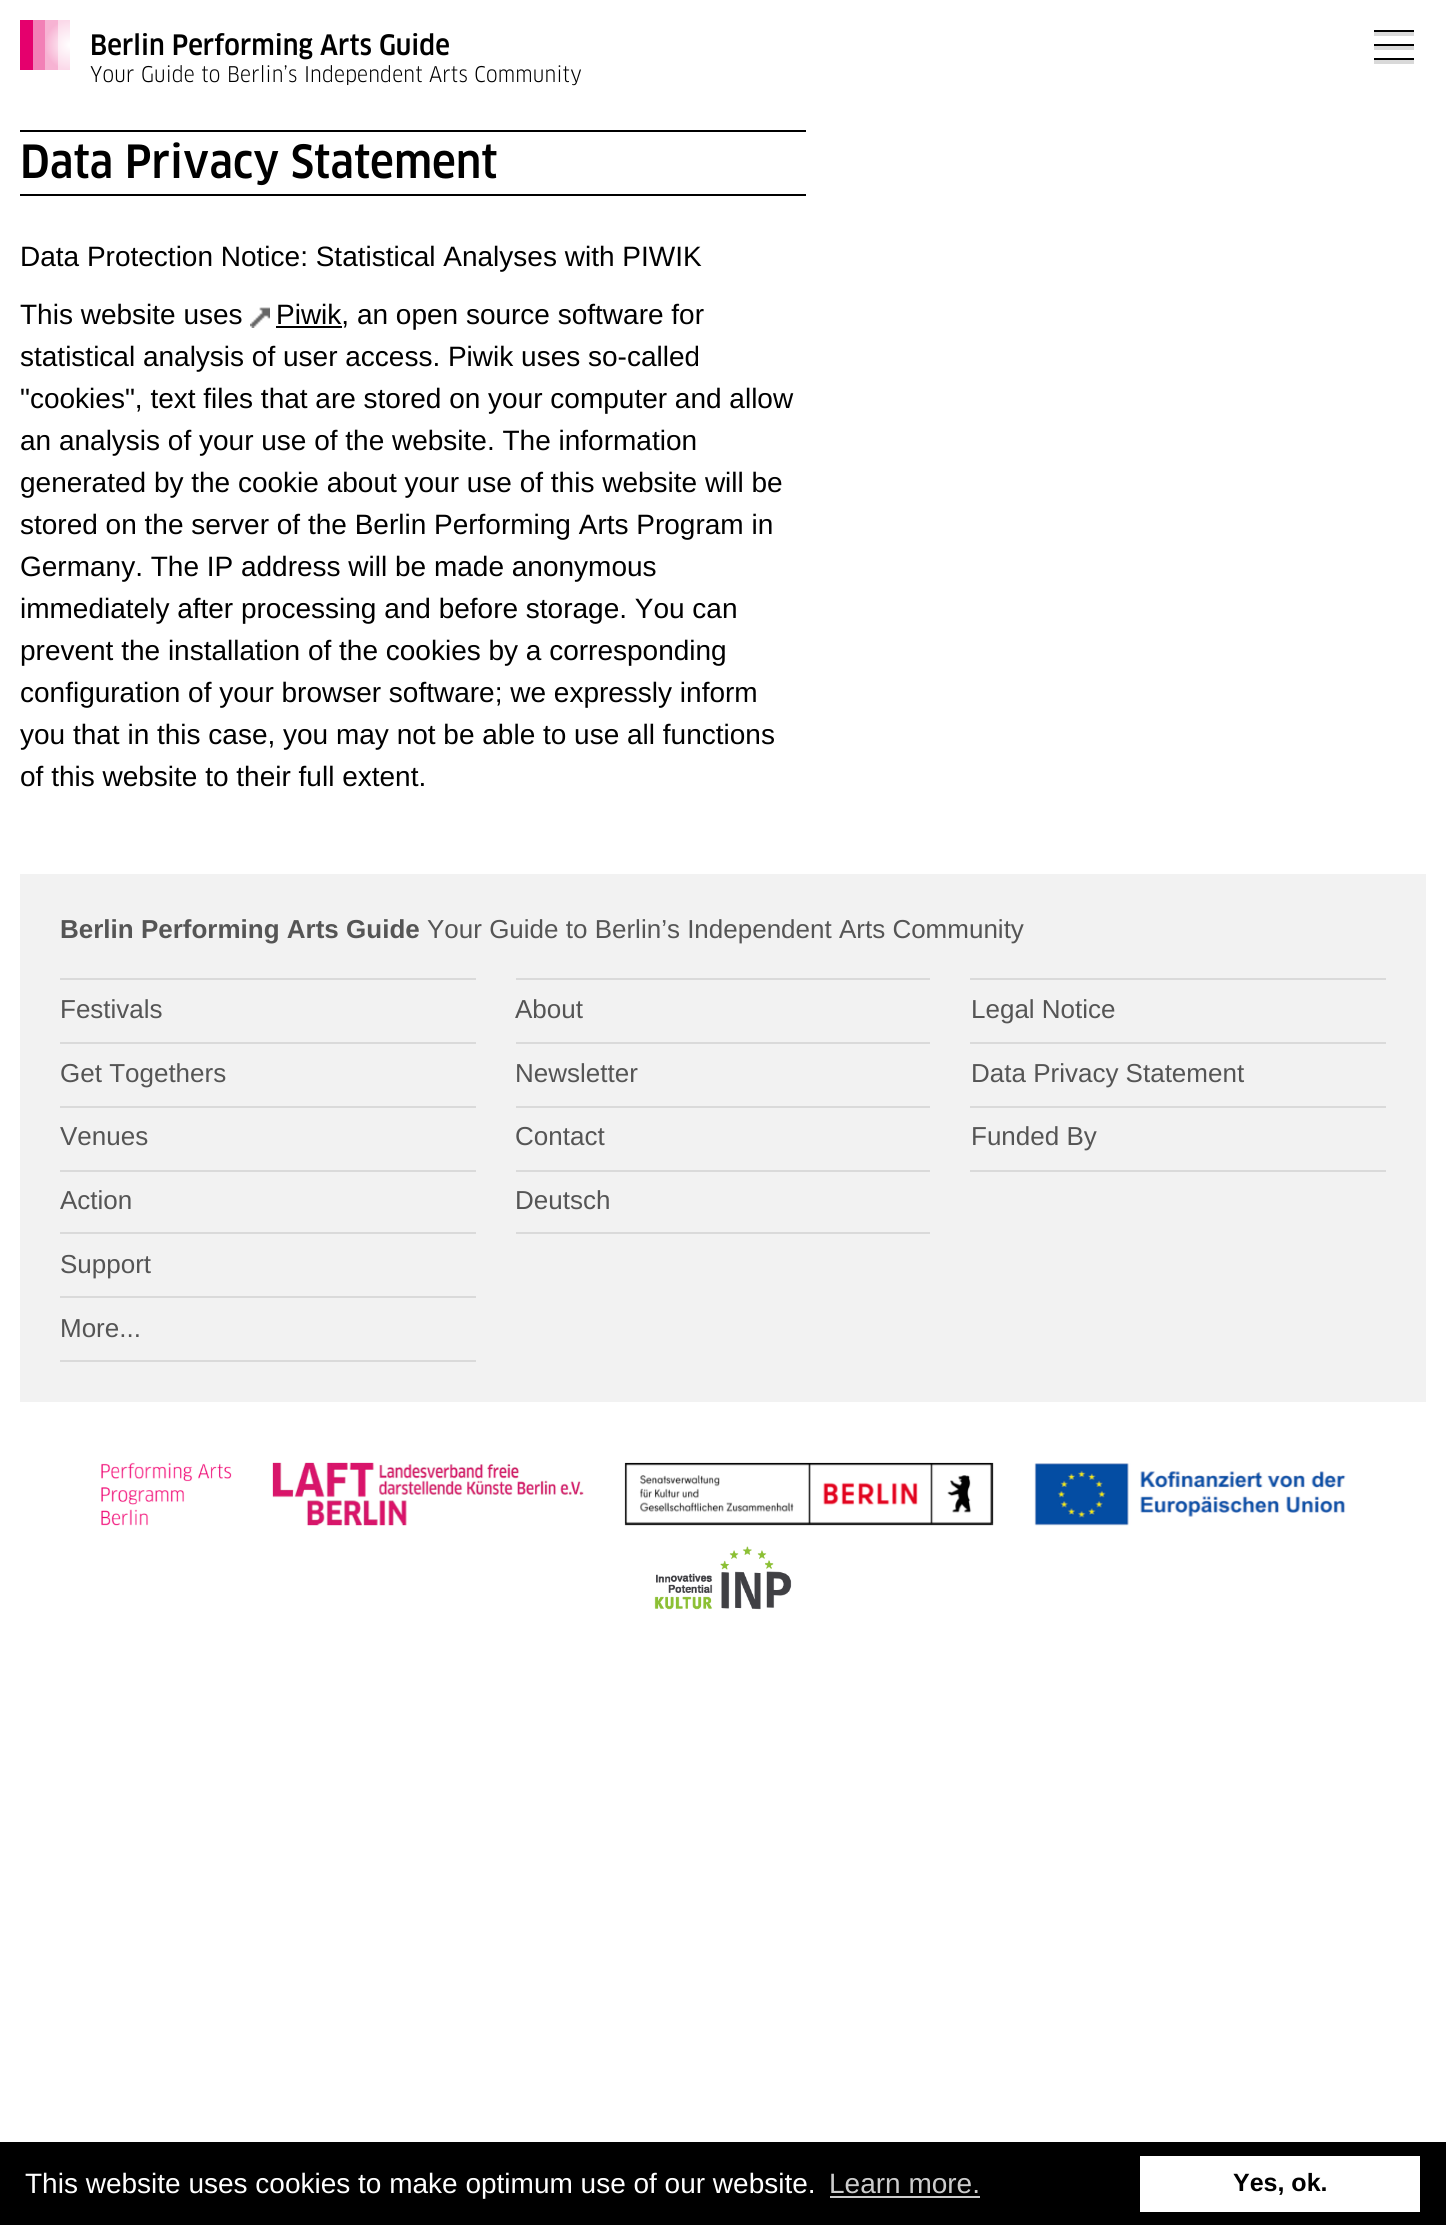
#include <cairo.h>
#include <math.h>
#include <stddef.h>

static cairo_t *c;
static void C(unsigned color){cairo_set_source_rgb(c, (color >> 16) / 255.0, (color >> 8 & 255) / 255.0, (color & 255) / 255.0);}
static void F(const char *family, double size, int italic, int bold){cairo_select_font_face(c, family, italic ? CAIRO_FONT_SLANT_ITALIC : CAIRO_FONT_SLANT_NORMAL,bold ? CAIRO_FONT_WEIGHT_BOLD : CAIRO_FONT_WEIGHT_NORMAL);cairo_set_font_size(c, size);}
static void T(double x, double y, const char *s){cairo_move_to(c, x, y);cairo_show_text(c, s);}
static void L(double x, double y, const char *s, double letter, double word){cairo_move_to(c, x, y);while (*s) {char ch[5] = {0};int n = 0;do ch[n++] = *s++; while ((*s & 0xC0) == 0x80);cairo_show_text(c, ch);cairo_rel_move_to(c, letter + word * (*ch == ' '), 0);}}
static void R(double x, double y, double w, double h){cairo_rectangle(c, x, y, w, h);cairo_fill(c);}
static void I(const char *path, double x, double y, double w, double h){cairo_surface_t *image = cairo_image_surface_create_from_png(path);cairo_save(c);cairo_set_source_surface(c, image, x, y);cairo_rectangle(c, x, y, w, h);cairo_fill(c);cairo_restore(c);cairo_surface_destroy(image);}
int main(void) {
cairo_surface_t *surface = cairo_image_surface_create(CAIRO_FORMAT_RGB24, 1446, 2225);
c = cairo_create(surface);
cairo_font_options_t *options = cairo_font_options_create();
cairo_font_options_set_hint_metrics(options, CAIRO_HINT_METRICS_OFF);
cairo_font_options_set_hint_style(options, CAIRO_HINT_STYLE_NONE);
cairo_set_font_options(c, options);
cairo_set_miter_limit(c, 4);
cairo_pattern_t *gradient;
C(0xffffff);
cairo_paint(c);
C(0xe5006d);
R(20,20,13,50);
C(0xf280b6);
R(33,20,12,50);
C(0xf7b3d3);
R(45,20,13,50);
C(0xfbd9e9);
R(58,20,12,50);
cairo_save(c);
cairo_rectangle(c,20,20,50,50);
cairo_clip(c);
gradient = cairo_pattern_create_radial(70,45,0,70,45,25);
cairo_pattern_add_color_stop_rgba(gradient,0,1,1,1,1);
cairo_pattern_add_color_stop_rgba(gradient,1,1,1,1,0);
cairo_set_source(c,gradient);
cairo_pattern_destroy(gradient);
cairo_arc(c,70,45,25,0,2 * M_PI);
cairo_fill(c);
cairo_restore(c);
F("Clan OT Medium",32,0,0);
C(0x000000);
T(90,55,"Berlin Performing Arts Guide");
F("Clan OT",24,0,0);
L(90,82,"Your Guide to Berlin’s Independent Arts Community",.2,0);
R(1374,58,40,2);
R(1374,30,40,2);
R(1374,44,40,2);
C(0xd9d9d9);
R(1374,46,40,4);
R(1374,60,40,4);
R(1374,32,40,4);
C(0x000000);
R(20,130,786,2);
R(20,194,786,2);
F("Clan OT Medium",52,0,0);
T(20,178,"Data Privacy Statement");
F("Liberation Sans",28,0,0);
T(20,266,"Data Protection Notice: Statistical Analyses with PIWIK");
T(20,324,"This website uses");
I("1.png",250,307,20,21);
R(276,326,66,2);
T(276,324,"Piwik, an open source software for");
T(20,366,"statistical analysis of user access. Piwik uses so-called");
T(20,408,"\"cookies\", text files that are stored on your computer and allow");
T(20,450,"an analysis of your use of the website. The information");
T(20,492,"generated by the cookie about your use of this website will be");
T(20,534,"stored on the server of the Berlin Performing Arts Program in");
T(20,576,"Germany. The IP address will be made anonymous");
T(20,618,"immediately after processing and before storage. You can");
T(20,660,"prevent the installation of the cookies by a corresponding");
T(20,702,"configuration of your browser software; we expressly inform");
T(20,744,"you that in this case, you may not be able to use all functions");
T(20,786,"of this website to their full extent.");
C(0xf2f2f2);
R(20,874,1406,528);
F("Liberation Sans",26,0,1);
C(0x555555);
T(60,938,"Berlin Performing Arts Guide");
F("Liberation Sans",26,0,0);
T(427,938,"Your Guide to Berlin’s Independent Arts Community");
C(0xdadada);
R(60,978,416,2);
R(60,1042,416,2);
C(0x555555);
T(60,1018,"Festivals");
C(0xdadada);
R(60,1106,416,2);
C(0x555555);
T(60,1082,"Get Togethers");
C(0xdadada);
R(60,1170,416,2);
C(0x555555);
T(60,1145,"Venues");
C(0xdadada);
R(60,1232,416,2);
C(0x555555);
T(60,1209,"Action");
C(0xdadada);
R(60,1296,416,2);
C(0x555555);
T(60,1273,"Support");
C(0xdadada);
R(60,1360,416,2);
C(0x555555);
T(60,1337,"More...");
C(0xdadada);
R(516,978,414,2);
R(516,1042,414,2);
C(0x555555);
T(515,1018,"About");
C(0xdadada);
R(516,1106,414,2);
C(0x555555);
T(515,1082,"Newsletter");
C(0xdadada);
R(516,1170,414,2);
C(0x555555);
T(515,1145,"Contact");
C(0xdadada);
R(516,1232,414,2);
C(0x555555);
T(515,1209,"Deutsch");
C(0xdadada);
R(970,978,416,2);
R(970,1042,416,2);
C(0x555555);
T(971,1018,"Legal Notice");
C(0xdadada);
R(970,1106,416,2);
C(0x555555);
T(971,1082,"Data Privacy Statement");
C(0xdadada);
R(970,1170,416,2);
C(0x555555);
T(971,1145,"Funded By");
I("2.png",101,1462,131,64);
I("3.png",272,1462,312,64);
I("4.png",624,1462,370,64);
I("5.png",1034,1463,312,63);
I("6.png",654,1546,138,64);
C(0x000000);
R(0,2142,1446,83);
F("Liberation Sans",28,0,0);
C(0xffffff);
T(25,2193,"This website uses cookies to make optimum use of our website.");
C(0xcccccc);
T(829,2193,"Learn more.");
R(830,2196,150,2);
C(0xffffff);
R(1140,2156,280,56);
F("Liberation Sans",25,0,1);
C(0x000000);
T(1233,2191,"Yes, ok.");
cairo_surface_write_to_png(surface, "o.png");
cairo_font_options_destroy(options);
cairo_destroy(c);
cairo_surface_destroy(surface);
return 0;
}
